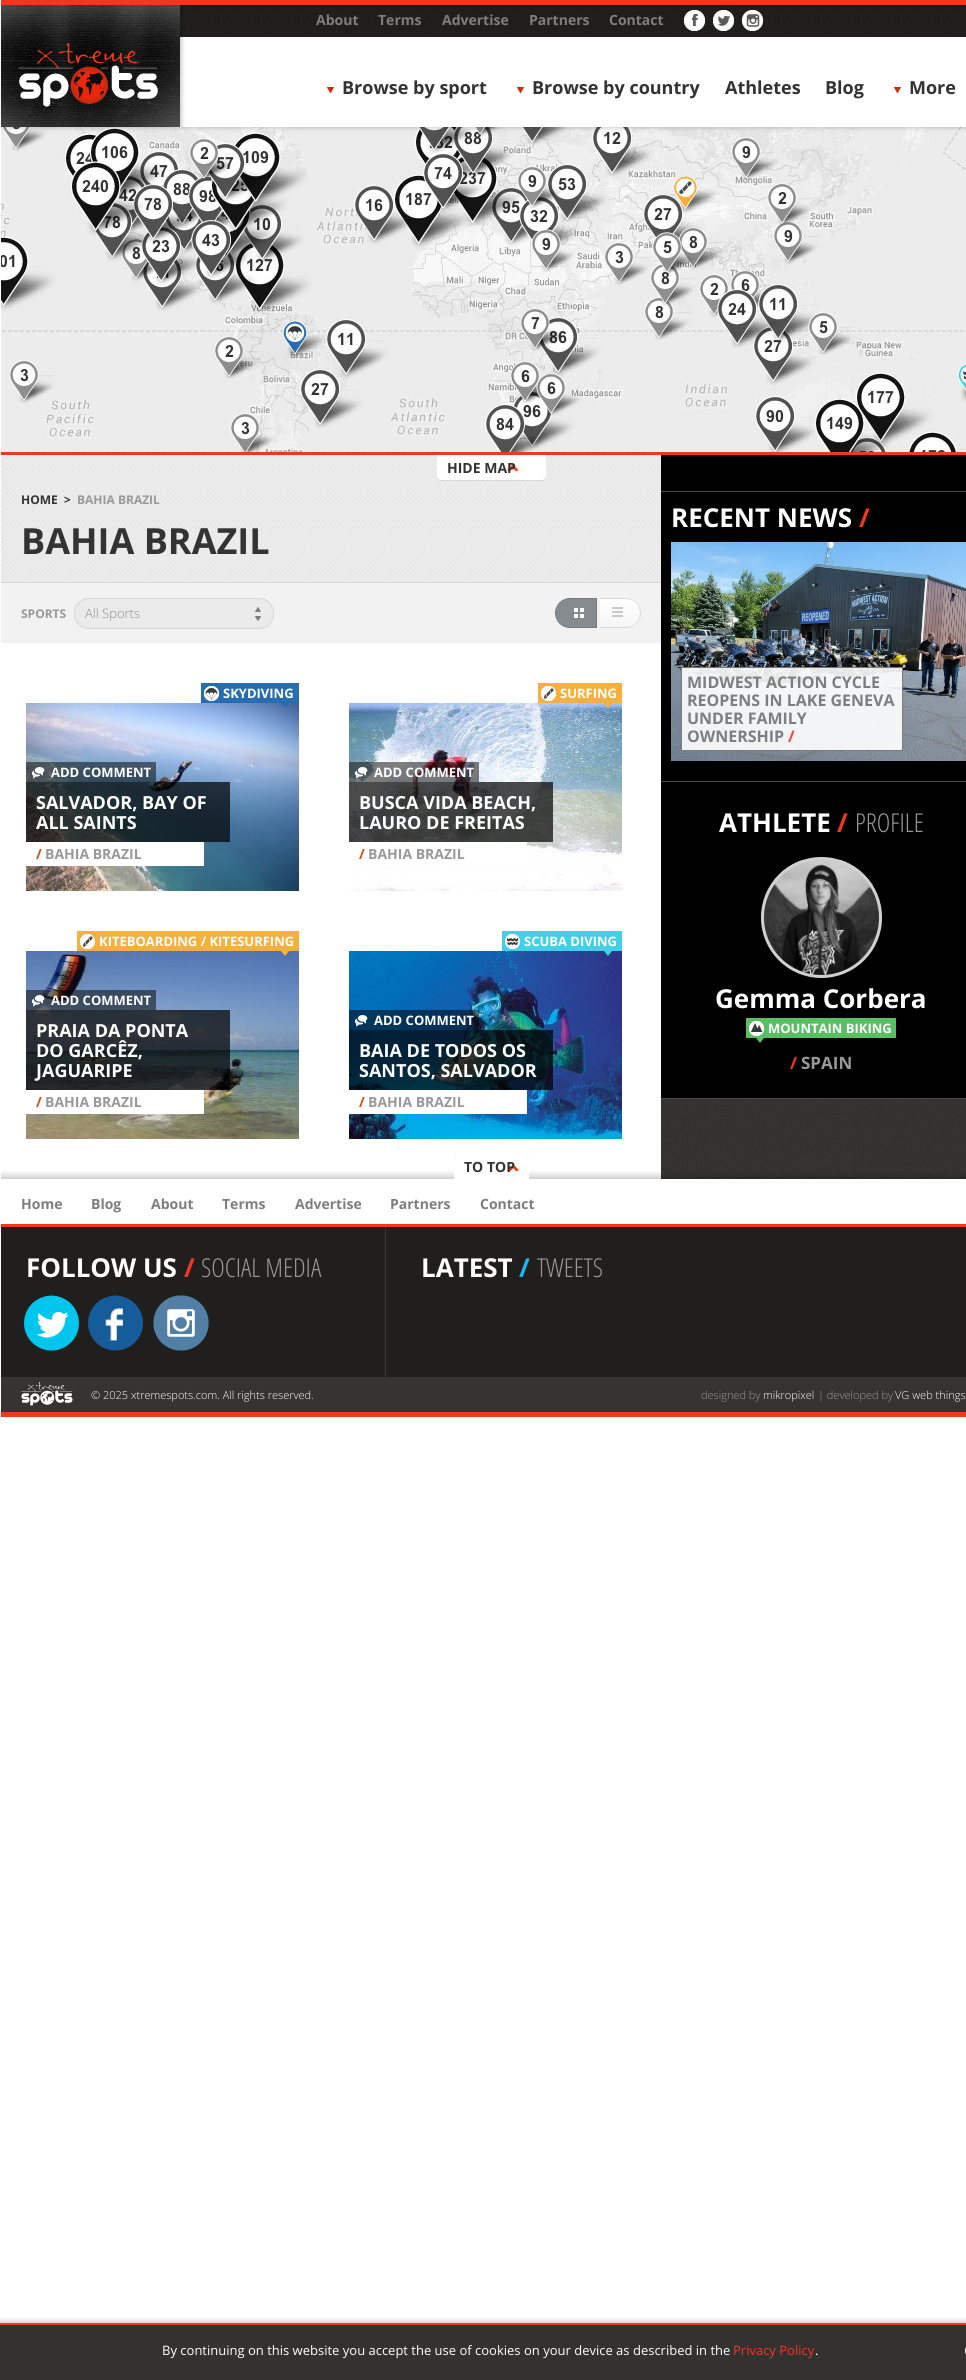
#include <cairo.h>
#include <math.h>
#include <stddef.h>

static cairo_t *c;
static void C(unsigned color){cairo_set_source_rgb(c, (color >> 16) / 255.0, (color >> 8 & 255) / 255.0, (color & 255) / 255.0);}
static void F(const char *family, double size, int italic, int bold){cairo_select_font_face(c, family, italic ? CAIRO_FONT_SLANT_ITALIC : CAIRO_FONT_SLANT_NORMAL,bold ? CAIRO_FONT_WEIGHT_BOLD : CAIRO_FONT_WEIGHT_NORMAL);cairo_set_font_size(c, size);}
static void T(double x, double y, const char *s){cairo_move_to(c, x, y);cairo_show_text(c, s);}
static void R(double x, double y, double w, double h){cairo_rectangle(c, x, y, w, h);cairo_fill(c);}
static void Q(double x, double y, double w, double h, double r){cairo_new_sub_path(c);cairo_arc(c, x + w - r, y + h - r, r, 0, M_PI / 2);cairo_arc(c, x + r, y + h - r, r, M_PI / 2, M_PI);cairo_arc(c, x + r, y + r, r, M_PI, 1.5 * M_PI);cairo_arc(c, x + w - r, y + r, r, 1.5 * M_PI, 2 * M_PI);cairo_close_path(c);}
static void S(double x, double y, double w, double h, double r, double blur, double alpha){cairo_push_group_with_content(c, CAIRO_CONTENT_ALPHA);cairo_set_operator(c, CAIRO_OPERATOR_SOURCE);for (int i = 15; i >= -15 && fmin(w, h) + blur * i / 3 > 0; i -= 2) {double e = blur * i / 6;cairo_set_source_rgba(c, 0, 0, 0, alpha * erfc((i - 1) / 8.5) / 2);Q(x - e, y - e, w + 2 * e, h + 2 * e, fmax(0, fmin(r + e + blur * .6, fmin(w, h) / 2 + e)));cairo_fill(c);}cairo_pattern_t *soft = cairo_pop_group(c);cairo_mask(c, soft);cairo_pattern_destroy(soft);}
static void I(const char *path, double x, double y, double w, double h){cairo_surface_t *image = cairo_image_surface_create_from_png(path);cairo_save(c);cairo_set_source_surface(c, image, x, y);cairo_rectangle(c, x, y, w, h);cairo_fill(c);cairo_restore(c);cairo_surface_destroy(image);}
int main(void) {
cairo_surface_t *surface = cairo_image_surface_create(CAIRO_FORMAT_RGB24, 966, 2380);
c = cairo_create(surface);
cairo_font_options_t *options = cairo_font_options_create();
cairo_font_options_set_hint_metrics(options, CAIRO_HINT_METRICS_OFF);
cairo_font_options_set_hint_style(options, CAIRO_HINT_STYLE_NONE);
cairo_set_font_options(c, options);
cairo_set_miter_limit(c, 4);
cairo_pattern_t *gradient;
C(0xffffff);
cairo_paint(c);
I("1.png",661,1099,305,80);
I("8.png",1,127,965,325);
cairo_save(c);
cairo_set_fill_rule(c,CAIRO_FILL_RULE_EVEN_ODD);
cairo_new_path(c);
cairo_move_to(c,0,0);
cairo_line_to(c,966,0);
cairo_line_to(c,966,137);
cairo_line_to(c,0,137);
cairo_close_path(c);
cairo_move_to(c,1,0);
cairo_line_to(c,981,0);
cairo_line_to(c,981,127);
cairo_line_to(c,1,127);
cairo_close_path(c);
cairo_clip(c);
C(0x323232);
S(3,5,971,123,0,2.5,.25);
cairo_restore(c);
C(0xef391b);
R(1,0,965,5);
I("3.png",180,5,786,32);
I("2.png",1,5,184,122);
F("Open Sans",14,0,1);
C(0x7f7e7e);
T(316,25,"About");
T(378,25,"Terms");
T(442,25,"Advertise");
T(529,25,"Partners");
T(609,25,"Contact");
I("4.png",684,10,21,21);
I("5.png",713,10,21,21);
I("6.png",742,10,21,21);
I("7.png",327,87,7,7);
F("Open Sans",18,0,1);
C(0x333333);
T(342,94,"Browse by sport");
I("7.png",517,87,7,7);
T(532,94,"Browse by country");
T(725,94,"Athletes");
T(825,94,"Blog");
I("7.png",894,87,7,7);
T(909,94,"More");
C(0xef391b);
R(1,452,965,3);
I("10.png",1,455,660,127);
cairo_set_source_rgba(c,0,0,0.004,0.07);
cairo_new_path(c);
cairo_move_to(c,437,478);
cairo_curve_to(c,438,480,439,481,441,481);
cairo_line_to(c,542,481);
cairo_curve_to(c,544,481,546,479,546,477);
cairo_line_to(c,546,456);
cairo_line_to(c,546,476);
cairo_curve_to(c,546,478,544,480,542,480);
cairo_line_to(c,441,480);
cairo_curve_to(c,439,480,438,479,437,478);
cairo_close_path(c);
cairo_fill(c);
C(0xffffff);
cairo_new_path(c);
cairo_move_to(c,437,455);
cairo_line_to(c,546,455);
cairo_line_to(c,546,476);
cairo_curve_to(c,546,478,544,480,542,480);
cairo_line_to(c,441,480);
cairo_curve_to(c,439,480,437,478,437,476);
cairo_close_path(c);
cairo_fill(c);
I("9.png",506,463,16,16);
F("Open Sans",14,0,1);
C(0x333333);
T(447,473,"HIDE MAP");
C(0xd7d7d7);
R(1,582,660,1);
F("Open Sans",12,0,1);
C(0x333333);
T(21,504,"HOME");
T(64,504,">");
C(0x999999);
T(77,504,"BAHIA BRAZIL");
F("Open Sans",36,0,1);
C(0x333333);
T(21,554,"BAHIA BRAZIL");
C(0xf2f2f2);
R(1,583,660,60);
F("Open Sans",12,0,1);
C(0x999999);
T(21,618,"SPORTS");
C(0xebebeb);
Q(74,598,200,31,15);
cairo_fill(c);
I("11.png",255,607,6,14);
Q(74.5,598.5,199,30,14.5);
C(0xd7d7d7);
cairo_set_line_width(c,1);
cairo_stroke(c);
F("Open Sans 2 Light",13,0,0);
C(0x8c8c8c);
T(85,618,"All Sports");
C(0x858b8f);
cairo_new_path(c);
cairo_move_to(c,570,598.5);
cairo_line_to(c,596.5,598.5);
cairo_line_to(c,596.5,627.5);
cairo_line_to(c,570,627.5);
cairo_curve_to(c,562,627.5,555.5,621,555.5,613);
cairo_curve_to(c,555.5,605,562,598.5,570,598.5);
cairo_close_path(c);
cairo_fill_preserve(c);
C(0x777b7f);
cairo_stroke(c);
I("12.png",574,608,10,10);
cairo_save(c);
cairo_new_path(c);
cairo_move_to(c,600,598);
cairo_line_to(c,626,598);
cairo_curve_to(c,634.5,598,641,604.5,641,613);
cairo_curve_to(c,641,621.5,634.5,628,626,628);
cairo_line_to(c,600,628);
cairo_close_path(c);
cairo_clip(c);
gradient = cairo_pattern_create_linear(620,627,620,599);
cairo_pattern_add_color_stop_rgba(gradient,0,0.961,0.961,0.961,1);
cairo_pattern_add_color_stop_rgba(gradient,1,1,1,1,1);
cairo_set_source(c,gradient);
cairo_pattern_destroy(gradient);
R(600,599,41,28);
cairo_restore(c);
C(0xd7d7d7);
cairo_set_fill_rule(c,CAIRO_FILL_RULE_EVEN_ODD);
cairo_new_path(c);
cairo_move_to(c,600,598);
cairo_line_to(c,626,598);
cairo_curve_to(c,634,598,641,605,641,613);
cairo_curve_to(c,641,621,634,628,626,628);
cairo_line_to(c,600,628);
cairo_close_path(c);
cairo_move_to(c,600,599);
cairo_line_to(c,626,599);
cairo_curve_to(c,634,599,640,605,640,613);
cairo_curve_to(c,640,621,634,627,626,627);
cairo_line_to(c,600,627);
cairo_close_path(c);
cairo_fill(c);
I("13.png",612,607,11,10);
C(0x276eb1);
R(201,683,98,20);
I("14.png",204,686,15,15);
F("Open Sans",13,0,1);
C(0xffffff);
T(223,698,"SKYDIVING");
I("15.png",26,703,273,188);
C(0x276eb1);
cairo_set_fill_rule(c,CAIRO_FILL_RULE_WINDING);
cairo_new_path(c);
cairo_move_to(c,281,703);
cairo_line_to(c,289,703);
cairo_line_to(c,285,708);
cairo_close_path(c);
cairo_fill(c);
cairo_set_source_rgba(c,0,0,0,0.5);
R(26,762,130,20);
I("16.png",31,767,14,12);
C(0xffffff);
T(51,777,"ADD COMMENT");
cairo_set_source_rgba(c,0,0,0,0.7);
R(26,782,204,60);
F("Open Sans",18,0,1);
C(0xffffff);
T(36,809,"SALVADOR, BAY OF");
T(36,829,"ALL SAINTS");
R(26,842,178,24);
F("Open Sans",14,0,1);
C(0xcc4f1f);
T(36,859,"/");
C(0x999999);
T(45,859,"BAHIA BRAZIL");
C(0xf6b03d);
R(538,683,84,20);
I("17.png",541,686,15,15);
F("Open Sans",13,0,1);
C(0xffffff);
T(560,698,"SURFING");
I("18.png",349,703,273,188);
C(0xf6b03d);
cairo_new_path(c);
cairo_move_to(c,604,703);
cairo_line_to(c,612,703);
cairo_line_to(c,608,708);
cairo_close_path(c);
cairo_fill(c);
cairo_set_source_rgba(c,0,0,0,0.5);
R(349,762,130,20);
I("19.png",354,767,14,12);
C(0xffffff);
T(374,777,"ADD COMMENT");
cairo_set_source_rgba(c,0,0,0,0.7);
R(349,782,204,60);
F("Open Sans",18,0,1);
C(0xffffff);
T(359,809,"BUSCA VIDA BEACH,");
T(359,829,"LAURO DE FREITAS");
R(349,842,178,24);
F("Open Sans",14,0,1);
C(0xcc4f1f);
T(359,859,"/");
C(0x999999);
T(368,859,"BAHIA BRAZIL");
C(0xf6b03d);
R(77,931,222,20);
I("17.png",80,934,15,15);
F("Open Sans",13,0,1);
C(0xffffff);
T(99,946,"KITEBOARDING / KITESURFING");
I("20.png",26,951,273,188);
C(0xf6b03d);
cairo_new_path(c);
cairo_move_to(c,281,951);
cairo_line_to(c,289,951);
cairo_line_to(c,285,956);
cairo_close_path(c);
cairo_fill(c);
cairo_set_source_rgba(c,0,0,0,0.5);
R(26,990,130,20);
I("21.png",31,995,14,12);
C(0xffffff);
T(51,1005,"ADD COMMENT");
cairo_set_source_rgba(c,0,0,0,0.7);
R(26,1010,204,80);
F("Open Sans",18,0,1);
C(0xffffff);
T(36,1037,"PRAIA DA PONTA");
T(36,1057,"DO GARCÊZ,");
T(36,1077,"JAGUARIPE");
R(26,1090,178,24);
F("Open Sans",14,0,1);
C(0xcc4f1f);
T(36,1107,"/");
C(0x999999);
T(45,1107,"BAHIA BRAZIL");
C(0x41d0e5);
R(502,931,120,20);
I("22.png",505,934,16,15);
F("Open Sans",13,0,1);
C(0xffffff);
T(524,946,"SCUBA DIVING");
I("23.png",349,951,273,188);
C(0x41d0e5);
cairo_new_path(c);
cairo_move_to(c,604,951);
cairo_line_to(c,612,951);
cairo_line_to(c,608,956);
cairo_close_path(c);
cairo_fill(c);
cairo_set_source_rgba(c,0,0,0,0.5);
R(349,1010,130,20);
I("24.png",354,1015,14,12);
C(0xffffff);
T(374,1025,"ADD COMMENT");
cairo_set_source_rgba(c,0,0,0,0.7);
R(349,1030,204,60);
F("Open Sans",18,0,1);
C(0xffffff);
T(359,1057,"BAIA DE TODOS OS");
T(359,1077,"SANTOS, SALVADOR");
R(349,1090,178,24);
F("Open Sans",14,0,1);
C(0xcc4f1f);
T(359,1107,"/");
C(0x999999);
T(368,1107,"BAHIA BRAZIL");
C(0x000000);
R(661,455,305,643);
C(0x4c4a48);
R(661,491,305,1);
R(661,781,305,1);
F("Open Sans",26,0,1);
C(0xffffff);
T(671,527,"RECENT NEWS");
C(0xf03820);
T(859,527,"/");
I("25.png",671,542,295,219);
cairo_set_source_rgba(c,1,1,1,0.9);
R(681,667,222,84);
cairo_rectangle(c,681.5,667.5,221,83);
cairo_set_source_rgba(c,0.431,0.431,0.431,0.9);
cairo_stroke(c);
F("Open Sans",16,0,1);
C(0x7f7e7e);
T(687,688,"MIDWEST ACTION CYCLE");
T(687,706,"REOPENS IN LAKE GENEVA");
T(687,724,"UNDER FAMILY");
T(687,742,"OWNERSHIP");
C(0xf04b35);
T(788,742,"/");
C(0x4a4a4a);
R(661,1098,305,1);
F("Open Sans",26,0,1);
C(0xffffff);
T(719,832,"ATHLETE");
C(0xf03820);
T(837,832,"/");
F("Open Sans Light",26,0,0);
C(0x999999);
T(855,832,"PROFILE");
I("26.png",761,860,121,115);
cairo_arc(c,821.5,917.5,59,0,2 * M_PI);
C(0xd0d0d0);
cairo_set_line_width(c,3);
cairo_stroke(c);
F("Open Sans",26,0,1);
C(0xffffff);
T(715,1008,"Gemma Corbera");
C(0x59bf63);
R(746,1018,150,20);
I("27.png",749,1021,16,15);
F("Open Sans",13,0,1);
C(0xffffff);
T(768,1033,"MOUNTAIN BIKING");
C(0x59bf63);
cairo_new_path(c);
cairo_move_to(c,756,1038);
cairo_line_to(c,764,1038);
cairo_line_to(c,760,1043);
cairo_close_path(c);
cairo_fill(c);
F("Open Sans",17,0,1);
C(0xf03820);
T(790,1069,"/");
C(0x999999);
T(801,1069,"SPAIN");
I("28.png",1,1171,965,8);
cairo_save(c);
cairo_rectangle(c,1,1154,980,25);
cairo_clip(c);
C(0xededed);
cairo_new_path(c);
cairo_move_to(c,458,1153);
cairo_curve_to(c,455,1153,454,1155,454,1158);
cairo_curve_to(c,454,1156,456,1154,458,1154);
cairo_line_to(c,525,1154);
cairo_curve_to(c,527,1154,529,1156,529,1158);
cairo_curve_to(c,529,1155,528,1153,525,1153);
cairo_close_path(c);
cairo_fill(c);
cairo_restore(c);
C(0xffffff);
cairo_new_path(c);
cairo_move_to(c,458,1154);
cairo_line_to(c,525,1154);
cairo_curve_to(c,527,1154,529,1156,529,1158);
cairo_line_to(c,529,1179);
cairo_line_to(c,454,1179);
cairo_line_to(c,454,1158);
cairo_curve_to(c,454,1156,456,1154,458,1154);
cairo_close_path(c);
cairo_fill(c);
I("29.png",507,1163,15,16);
F("Open Sans",14,0,1);
C(0x333333);
T(464,1172,"TO TOP");
C(0xef391b);
R(1,1224,965,3);
C(0x7f7e7e);
T(21,1209,"Home");
T(91,1209,"Blog");
T(151,1209,"About");
T(222,1209,"Terms");
T(295,1209,"Advertise");
T(390,1209,"Partners");
T(480,1209,"Contact");
C(0x201f1d);
R(1,1227,965,150);
C(0x373737);
R(385,1227,1,150);
F("Open Sans",26,0,1);
C(0xffffff);
T(26,1277,"FOLLOW US");
C(0xf03820);
T(184,1277,"/");
F("Open Sans Light",26,0,0);
C(0x999999);
T(201,1277,"SOCIAL MEDIA");
I("30.png",24,1295,55,56);
I("31.png",88,1295,55,56);
I("32.png",153,1295,56,56);
F("Open Sans",26,0,1);
C(0xffffff);
T(421,1277,"LATEST");
C(0x15b9fa);
T(519,1277,"/");
F("Open Sans Light",26,0,0);
C(0x999999);
T(537,1277,"TWEETS");
C(0x353432);
R(1,1377,965,35);
I("33.png",21,1382,52,24);
C(0xef391b);
R(1,1412,965,5);
F("Open Sans 2 Light",11,0,0);
C(0xffffff);
T(91,1399,"© 2025 xtremespots.com. All rights reserved.");
C(0x999999);
T(701,1399,"designed by");
C(0xffffff);
T(763,1399,"mikropixel");
C(0x999999);
T(818,1399,"| developed by");
C(0xffffff);
T(895,1399,"VG web things");
C(0x323232);
S(-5,2321,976,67,0,2.5,.25);
C(0x343230);
R(0,2325,966,55);
C(0xef391b);
R(0,2323,966,2);
F("Open Sans",13,0,0);
C(0xffffff);
T(162,2355,"By continuing on this website you accept the use of cookies on your device as described in the");
C(0xf03820);
T(733,2355,"Privacy Policy");
C(0xffffff);
T(815,2355,".");
I("34.png",965,2347,1,8);
cairo_surface_write_to_png(surface, "o.png");
cairo_font_options_destroy(options);
cairo_destroy(c);
cairo_surface_destroy(surface);
return 0;
}
